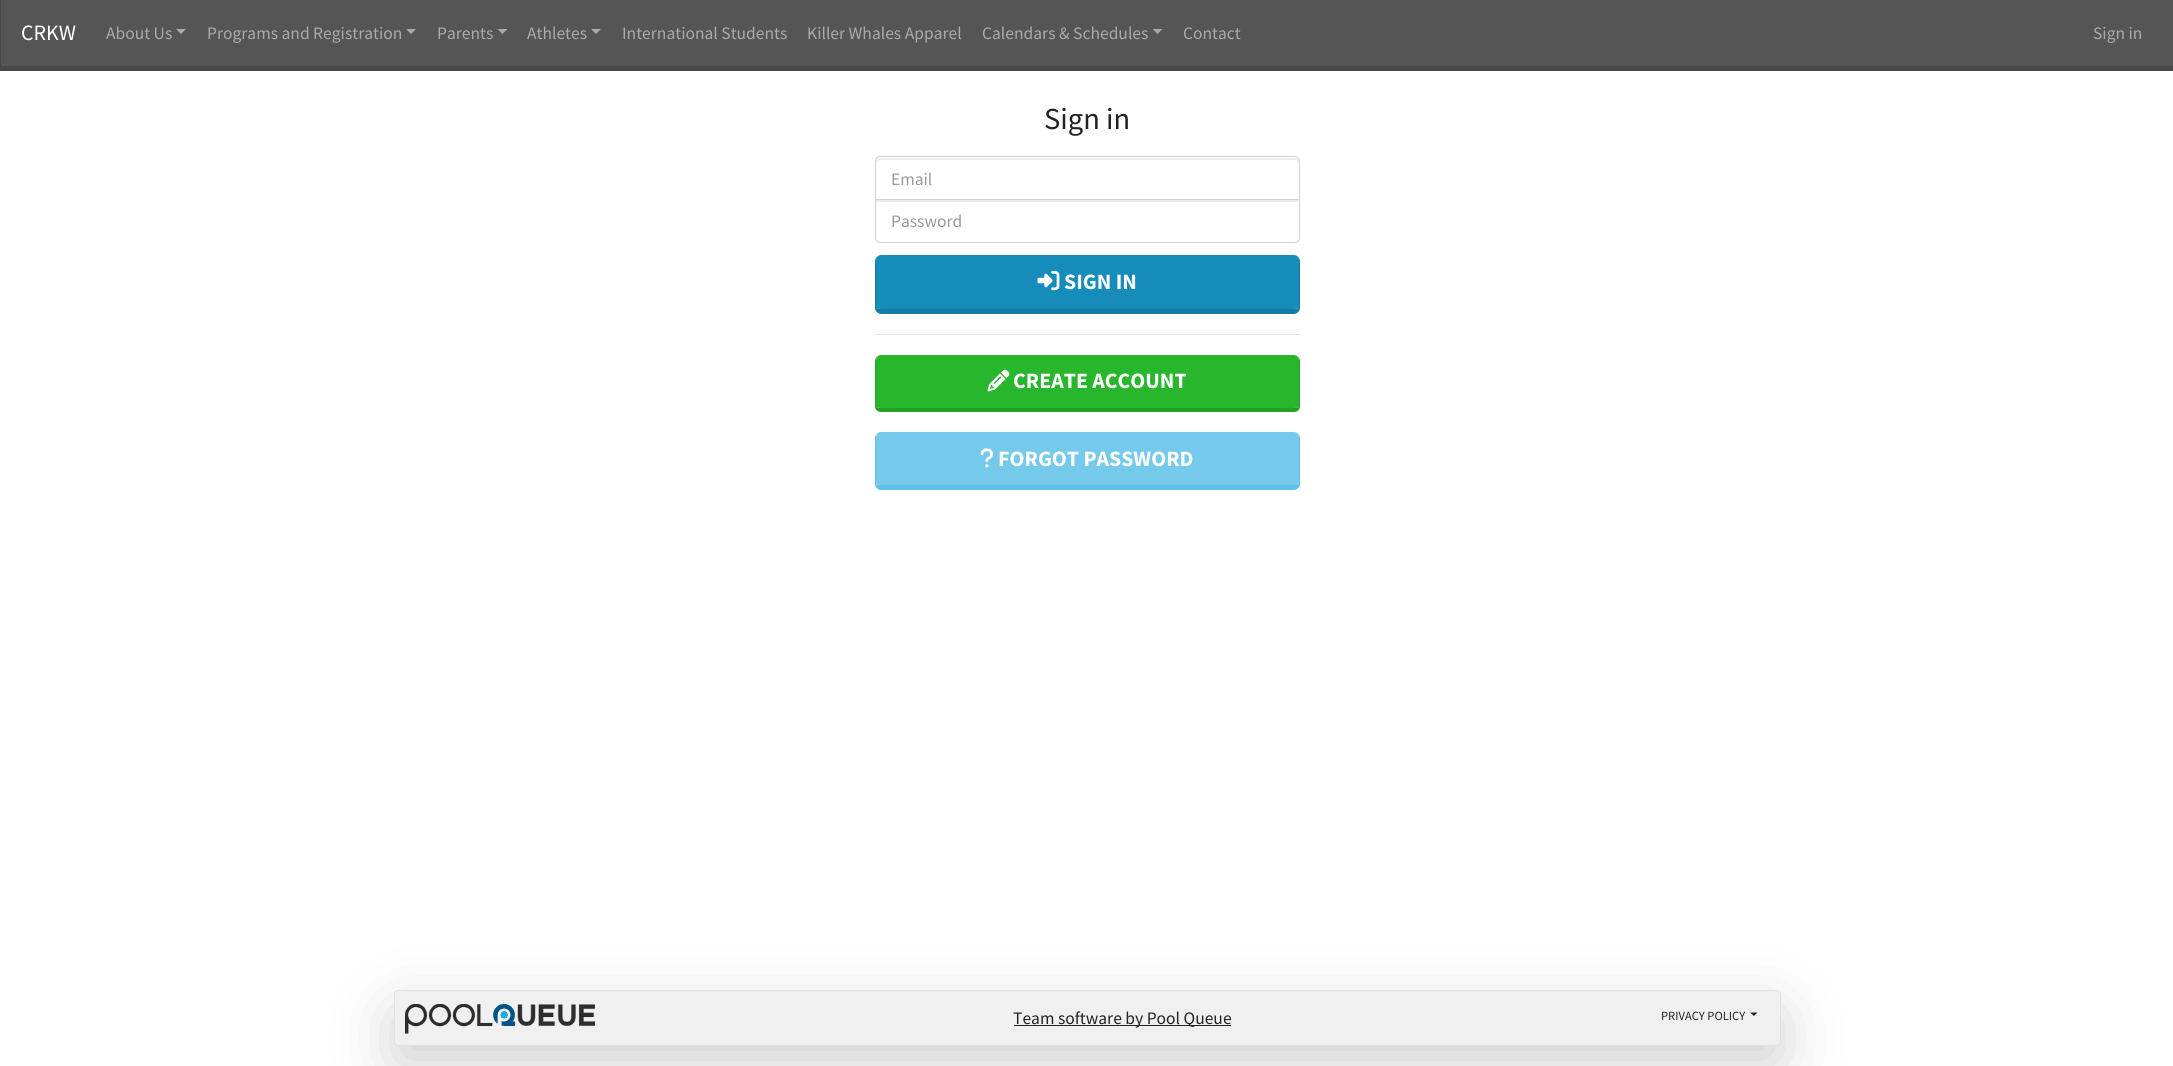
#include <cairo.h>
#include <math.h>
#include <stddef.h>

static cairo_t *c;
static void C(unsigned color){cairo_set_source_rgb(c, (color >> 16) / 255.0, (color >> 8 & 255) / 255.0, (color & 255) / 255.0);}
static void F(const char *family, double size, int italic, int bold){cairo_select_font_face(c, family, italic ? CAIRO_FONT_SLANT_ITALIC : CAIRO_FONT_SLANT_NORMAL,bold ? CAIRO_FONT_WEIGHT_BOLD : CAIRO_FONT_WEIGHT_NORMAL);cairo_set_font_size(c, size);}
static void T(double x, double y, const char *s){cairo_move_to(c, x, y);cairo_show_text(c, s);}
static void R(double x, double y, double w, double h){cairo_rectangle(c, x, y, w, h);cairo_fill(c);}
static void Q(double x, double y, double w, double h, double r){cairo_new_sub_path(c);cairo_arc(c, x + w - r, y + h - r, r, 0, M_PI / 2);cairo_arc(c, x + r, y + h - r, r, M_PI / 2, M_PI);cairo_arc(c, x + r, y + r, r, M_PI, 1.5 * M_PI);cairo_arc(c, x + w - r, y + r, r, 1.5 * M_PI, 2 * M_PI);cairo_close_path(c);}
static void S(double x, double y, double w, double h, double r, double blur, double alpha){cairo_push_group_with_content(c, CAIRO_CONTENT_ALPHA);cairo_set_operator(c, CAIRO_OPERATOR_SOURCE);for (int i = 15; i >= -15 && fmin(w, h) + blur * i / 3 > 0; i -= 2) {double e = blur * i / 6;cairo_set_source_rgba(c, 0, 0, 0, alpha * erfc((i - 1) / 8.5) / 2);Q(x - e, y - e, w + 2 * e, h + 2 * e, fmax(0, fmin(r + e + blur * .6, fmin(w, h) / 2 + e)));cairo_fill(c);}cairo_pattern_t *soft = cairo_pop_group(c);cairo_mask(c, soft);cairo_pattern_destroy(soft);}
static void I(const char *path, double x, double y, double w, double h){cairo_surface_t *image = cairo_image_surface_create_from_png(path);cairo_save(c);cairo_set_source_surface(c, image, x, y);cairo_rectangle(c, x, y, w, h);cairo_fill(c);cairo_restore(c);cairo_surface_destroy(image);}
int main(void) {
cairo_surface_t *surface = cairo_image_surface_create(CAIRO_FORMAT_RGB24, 2173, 1066);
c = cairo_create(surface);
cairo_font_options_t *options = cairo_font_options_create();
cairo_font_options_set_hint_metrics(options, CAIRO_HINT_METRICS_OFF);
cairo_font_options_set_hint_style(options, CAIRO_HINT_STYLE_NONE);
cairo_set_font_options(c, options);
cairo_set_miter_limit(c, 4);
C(0xffffff);
cairo_paint(c);
C(0x555555);
R(1,0,2172,66);
C(0x484848);
R(0,66,2173,5);
R(0,0,1,71);
F("Source Sans Pro",21.9,0,0);
C(0xffffff);
T(21,40,"CRKW");
F("Source Sans Pro",17.5,0,0);
C(0xaaaaaa);
T(106,39,"About Us");
cairo_new_path(c);
cairo_move_to(c,176,29);
cairo_line_to(c,186,29);
cairo_line_to(c,181,34);
cairo_close_path(c);
cairo_fill(c);
T(207,39,"Programs and Registration");
cairo_new_path(c);
cairo_move_to(c,406,29);
cairo_line_to(c,416,29);
cairo_line_to(c,411,34);
cairo_close_path(c);
cairo_fill(c);
T(437,39,"Parents");
cairo_new_path(c);
cairo_move_to(c,497.5,29);
cairo_line_to(c,507.5,29);
cairo_line_to(c,502.5,34);
cairo_close_path(c);
cairo_fill(c);
T(527,39,"Athletes");
cairo_new_path(c);
cairo_move_to(c,591,29);
cairo_line_to(c,601,29);
cairo_line_to(c,596,34);
cairo_close_path(c);
cairo_fill(c);
T(622,39,"International Students");
T(807,39,"Killer Whales Apparel");
T(982,39,"Calendars & Schedules");
cairo_new_path(c);
cairo_move_to(c,1152.5,29);
cairo_line_to(c,1162.5,29);
cairo_line_to(c,1157.5,34);
cairo_close_path(c);
cairo_fill(c);
T(1183,39,"Contact");
T(2093,39,"Sign in");
F("Source Sans Pro",30.5,0,0);
C(0x222222);
T(1044,129,"Sign in");
C(0xececec);
cairo_new_path(c);
cairo_move_to(c,880,160);
cairo_line_to(c,1295,160);
cairo_curve_to(c,1297,160,1299,162,1299,164);
cairo_curve_to(c,1299,161,1299,158,1295,158);
cairo_line_to(c,880,158);
cairo_curve_to(c,876,158,876,161,876,164);
cairo_curve_to(c,876,162,878,160,880,160);
cairo_close_path(c);
cairo_fill(c);
cairo_new_path(c);
cairo_move_to(c,880,156.5);
cairo_line_to(c,1295,156.5);
cairo_curve_to(c,1297.5,156.5,1299.5,158.5,1299.5,161);
cairo_line_to(c,1299.5,199.5);
cairo_line_to(c,875.5,199.5);
cairo_line_to(c,875.5,161);
cairo_curve_to(c,875.5,158.5,877.5,156.5,880,156.5);
cairo_close_path(c);
C(0xced4da);
cairo_set_line_width(c,1);
cairo_stroke(c);
F("Source Sans Pro",17.5,0,0);
C(0x999999);
T(891,185,"Email");
C(0xececec);
R(876,200,423,2);
cairo_new_path(c);
cairo_move_to(c,875.5,199.5);
cairo_line_to(c,1299.5,199.5);
cairo_line_to(c,1299.5,238);
cairo_curve_to(c,1299.5,240.5,1297.5,242.5,1295,242.5);
cairo_line_to(c,880,242.5);
cairo_curve_to(c,877.5,242.5,875.5,240.5,875.5,238);
cairo_close_path(c);
C(0xced4da);
cairo_stroke(c);
C(0x999999);
T(891,227,"Password");
C(0x158cba);
cairo_new_path(c);
cairo_move_to(c,881,255);
cairo_line_to(c,1294,255);
cairo_curve_to(c,1297,255,1299,258,1299,261);
cairo_line_to(c,1299,308);
cairo_curve_to(c,1299,308,1297,309,1294,309);
cairo_line_to(c,881,309);
cairo_curve_to(c,878,309,876,308,876,308);
cairo_line_to(c,876,261);
cairo_curve_to(c,876,258,878,255,881,255);
cairo_close_path(c);
cairo_fill(c);
C(0x127ba3);
cairo_set_fill_rule(c,CAIRO_FILL_RULE_EVEN_ODD);
cairo_new_path(c);
cairo_move_to(c,881,255);
cairo_line_to(c,1294,255);
cairo_curve_to(c,1297,255,1300,258,1300,261);
cairo_line_to(c,1300,308);
cairo_curve_to(c,1300,311,1297,314,1294,314);
cairo_line_to(c,881,314);
cairo_curve_to(c,878,314,875,311,875,308);
cairo_line_to(c,875,261);
cairo_curve_to(c,875,258,878,255,881,255);
cairo_close_path(c);
cairo_move_to(c,881,255);
cairo_line_to(c,1294,255);
cairo_curve_to(c,1297,255,1299,258,1299,261);
cairo_line_to(c,1299,308);
cairo_curve_to(c,1299,308,1297,309,1294,309);
cairo_line_to(c,881,309);
cairo_curve_to(c,878,309,876,308,876,308);
cairo_line_to(c,876,261);
cairo_curve_to(c,876,258,878,255,881,255);
cairo_close_path(c);
cairo_fill(c);
I("1.png",1037,271,23,20);
F("Source Sans Pro",21.9,0,1);
C(0xffffff);
T(1064,289,"SIGN IN");
C(0xe6e6e6);
R(875,334,425,1);
C(0x28b62c);
cairo_set_fill_rule(c,CAIRO_FILL_RULE_WINDING);
cairo_new_path(c);
cairo_move_to(c,881,355);
cairo_line_to(c,1294,355);
cairo_curve_to(c,1297,355,1299,358,1299,361);
cairo_line_to(c,1299,406);
cairo_curve_to(c,1299,407,1297,408,1294,408);
cairo_line_to(c,881,408);
cairo_curve_to(c,878,408,876,407,876,406);
cairo_line_to(c,876,361);
cairo_curve_to(c,876,358,878,355,881,355);
cairo_close_path(c);
cairo_fill(c);
C(0x23a127);
cairo_set_fill_rule(c,CAIRO_FILL_RULE_EVEN_ODD);
cairo_new_path(c);
cairo_move_to(c,881,355);
cairo_line_to(c,1294,355);
cairo_curve_to(c,1297,355,1300,358,1300,361);
cairo_line_to(c,1300,406);
cairo_curve_to(c,1300,410,1297,412,1294,412);
cairo_line_to(c,881,412);
cairo_curve_to(c,878,412,875,410,875,406);
cairo_line_to(c,875,361);
cairo_curve_to(c,875,358,878,355,881,355);
cairo_close_path(c);
cairo_move_to(c,881,355);
cairo_line_to(c,1294,355);
cairo_curve_to(c,1297,355,1299,358,1299,361);
cairo_line_to(c,1299,406);
cairo_curve_to(c,1299,407,1297,408,1294,408);
cairo_line_to(c,881,408);
cairo_curve_to(c,878,408,876,407,876,406);
cairo_line_to(c,876,361);
cairo_curve_to(c,876,358,878,355,881,355);
cairo_close_path(c);
cairo_fill(c);
I("2.png",987,369,23,23);
C(0xffffff);
T(1013,388,"CREATE ACCOUNT");
C(0x75caeb);
cairo_set_fill_rule(c,CAIRO_FILL_RULE_WINDING);
cairo_new_path(c);
cairo_move_to(c,881,432);
cairo_line_to(c,1294,432);
cairo_curve_to(c,1297,432,1299,435,1299,438);
cairo_line_to(c,1299,484);
cairo_curve_to(c,1299,485,1297,485,1294,485);
cairo_line_to(c,881,485);
cairo_curve_to(c,878,485,876,485,876,484);
cairo_line_to(c,876,438);
cairo_curve_to(c,876,435,878,432,881,432);
cairo_close_path(c);
cairo_fill(c);
C(0x5fc1e8);
cairo_set_fill_rule(c,CAIRO_FILL_RULE_EVEN_ODD);
cairo_new_path(c);
cairo_move_to(c,881,432);
cairo_line_to(c,1294,432);
cairo_curve_to(c,1297,432,1300,435,1300,438);
cairo_line_to(c,1300,484);
cairo_curve_to(c,1300,487,1297,490,1294,490);
cairo_line_to(c,881,490);
cairo_curve_to(c,878,490,875,487,875,484);
cairo_line_to(c,875,438);
cairo_curve_to(c,875,435,878,432,881,432);
cairo_close_path(c);
cairo_move_to(c,881,432);
cairo_line_to(c,1294,432);
cairo_curve_to(c,1297,432,1299,435,1299,438);
cairo_line_to(c,1299,484);
cairo_curve_to(c,1299,485,1297,485,1294,485);
cairo_line_to(c,881,485);
cairo_curve_to(c,878,485,876,485,876,484);
cairo_line_to(c,876,438);
cairo_curve_to(c,876,435,878,432,881,432);
cairo_close_path(c);
cairo_fill(c);
I("3.png",980,448,13,20);
C(0xffffff);
T(998,466,"FORGOT PASSWORD");
C(0x000000);
S(394,1010,1387,56,5,30,.18);
C(0xf0f0f0);
Q(394.5,990.5,1386,55,4.5);
cairo_fill_preserve(c);
C(0xdee2e6);
cairo_stroke(c);
I("4.png",405,1004,190,30);
C(0x222222);
R(1014,1025,217,1);
F("Source Sans Pro",17.5,0,0);
T(1013,1024,"Team software by Pool Queue");
F("Source Sans Pro",12.5,0,0);
T(1661,1020,"PRIVACY POLICY");
cairo_set_fill_rule(c,CAIRO_FILL_RULE_WINDING);
cairo_new_path(c);
cairo_move_to(c,1750,1012.5);
cairo_line_to(c,1757.5,1012.5);
cairo_line_to(c,1754,1016);
cairo_close_path(c);
cairo_fill(c);
cairo_surface_write_to_png(surface, "o.png");
cairo_font_options_destroy(options);
cairo_destroy(c);
cairo_surface_destroy(surface);
return 0;
}
